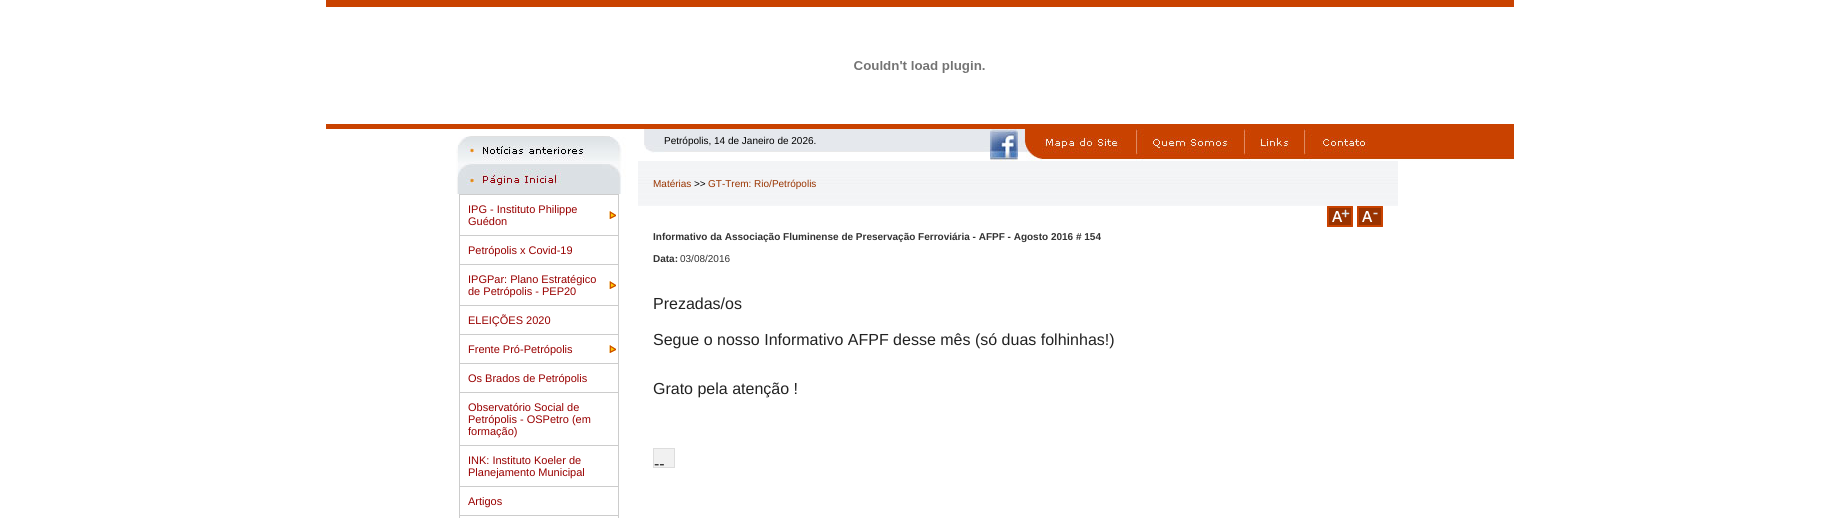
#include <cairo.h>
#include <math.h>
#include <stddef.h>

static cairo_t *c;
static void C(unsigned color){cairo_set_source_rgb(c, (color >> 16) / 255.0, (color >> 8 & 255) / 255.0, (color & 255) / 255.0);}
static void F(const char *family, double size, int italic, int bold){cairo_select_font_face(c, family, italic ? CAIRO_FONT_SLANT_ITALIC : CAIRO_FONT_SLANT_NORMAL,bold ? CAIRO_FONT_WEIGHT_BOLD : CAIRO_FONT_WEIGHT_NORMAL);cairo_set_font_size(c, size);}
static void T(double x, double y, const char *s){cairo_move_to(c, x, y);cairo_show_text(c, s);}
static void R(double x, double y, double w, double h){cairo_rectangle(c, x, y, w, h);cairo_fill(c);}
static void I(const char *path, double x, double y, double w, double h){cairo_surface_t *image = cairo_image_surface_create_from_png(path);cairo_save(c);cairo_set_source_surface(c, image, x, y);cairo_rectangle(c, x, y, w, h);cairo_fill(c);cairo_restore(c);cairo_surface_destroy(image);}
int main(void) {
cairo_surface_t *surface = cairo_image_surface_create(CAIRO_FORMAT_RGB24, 1839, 518);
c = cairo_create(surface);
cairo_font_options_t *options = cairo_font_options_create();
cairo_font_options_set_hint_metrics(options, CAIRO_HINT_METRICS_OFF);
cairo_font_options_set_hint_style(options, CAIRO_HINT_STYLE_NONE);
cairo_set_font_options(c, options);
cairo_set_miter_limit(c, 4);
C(0xffffff);
cairo_paint(c);
C(0xc94200);
R(326,0,1188,7);
I("1.png",854,61,131,12);
R(326,124,1188,5);
I("2.png",456,136,170,58);
I("3.png",609,211,7,8);
C(0xcccccc);
R(459,194,160,1);
R(618,194,1,41);
R(459,194,1,41);
F("Liberation Sans",11,0,0);
C(0x990000);
T(468,213,"IPG - Instituto Philippe");
T(468,225,"Guédon");
C(0xcccccc);
R(459,235,160,1);
R(618,235,1,29);
R(459,235,1,29);
C(0x990000);
T(468,254,"Petrópolis x Covid-19");
I("3.png",609,281,7,8);
C(0xcccccc);
R(459,264,160,1);
R(618,264,1,41);
R(459,264,1,41);
C(0x990000);
T(468,283,"IPGPar: Plano Estratégico");
T(468,295,"de Petrópolis - PEP20");
C(0xcccccc);
R(459,305,160,1);
R(618,305,1,29);
R(459,305,1,29);
C(0x990000);
T(468,324,"ELEIÇÕES 2020");
I("3.png",609,345,7,8);
C(0xcccccc);
R(459,334,160,1);
R(618,334,1,29);
R(459,334,1,29);
C(0x990000);
T(468,353,"Frente Pró-Petrópolis");
C(0xcccccc);
R(459,363,160,1);
R(618,363,1,29);
R(459,363,1,29);
C(0x990000);
T(468,382,"Os Brados de Petrópolis");
C(0xcccccc);
R(459,392,160,1);
R(618,392,1,53);
R(459,392,1,53);
C(0x990000);
T(468,411,"Observatório Social de");
T(468,423,"Petrópolis - OSPetro (em");
T(468,435,"formação)");
C(0xcccccc);
R(459,445,160,1);
R(618,445,1,41);
R(459,445,1,41);
C(0x990000);
T(468,464,"INK: Instituto Koeler de");
T(468,476,"Planejamento Municipal");
C(0xcccccc);
R(459,486,160,1);
R(618,486,1,29);
R(459,486,1,29);
C(0x990000);
T(468,505,"Artigos");
C(0xcccccc);
R(459,515,160,1);
R(618,515,1,3);
R(459,515,1,3);
I("4.png",644,129,20,24);
C(0xe5e8ed);
R(664,129,320,22);
F("Liberation Sans",10,0,0);
C(0x000000);
T(664,144,"Petrópolis, 14 de Janeiro de 2026.");
C(0xe9e9e9);
R(664,151,320,1);
I("5.png",984,129,6,23);
I("6.png",990,129,28,32);
I("7.png",1018,129,118,32);
I("8.png",1136,129,107,32);
I("9.png",1243,129,61,32);
I("10.png",1304,129,78,32);
I("11.png",1382,129,132,31);
I("12.png",638,161,760,45);
C(0x993400);
T(653,187,"Matérias");
C(0x000000);
T(694,187,">>");
C(0x993400);
T(708,187,"GT-Trem: Rio/Petrópolis");
I("13.png",1327,206,26,21);
I("14.png",1357,206,26,21);
F("Liberation Sans",10,0,1);
C(0x333333);
T(653,240,"Informativo da Associação Fluminense de Preservação Ferroviária - AFPF - Agosto 2016 # 154");
T(653,262,"Data:");
F("Liberation Sans",10,0,0);
T(680,262,"03/08/2016");
F("Liberation Sans",16,0,0);
C(0x222222);
T(653,309,"Prezadas/os");
T(653,345,"Segue o nosso Informativo AFPF desse mês (só duas folhinhas!)");
T(653,394,"Grato pela atenção !");
C(0xf1f1f1);
cairo_rectangle(c,653.5,448.5,21,19);
cairo_fill_preserve(c);
C(0xdddddd);
cairo_set_line_width(c,1);
cairo_stroke(c);
C(0x222222);
T(654,469,"--");
cairo_surface_write_to_png(surface, "o.png");
cairo_font_options_destroy(options);
cairo_destroy(c);
cairo_surface_destroy(surface);
return 0;
}
